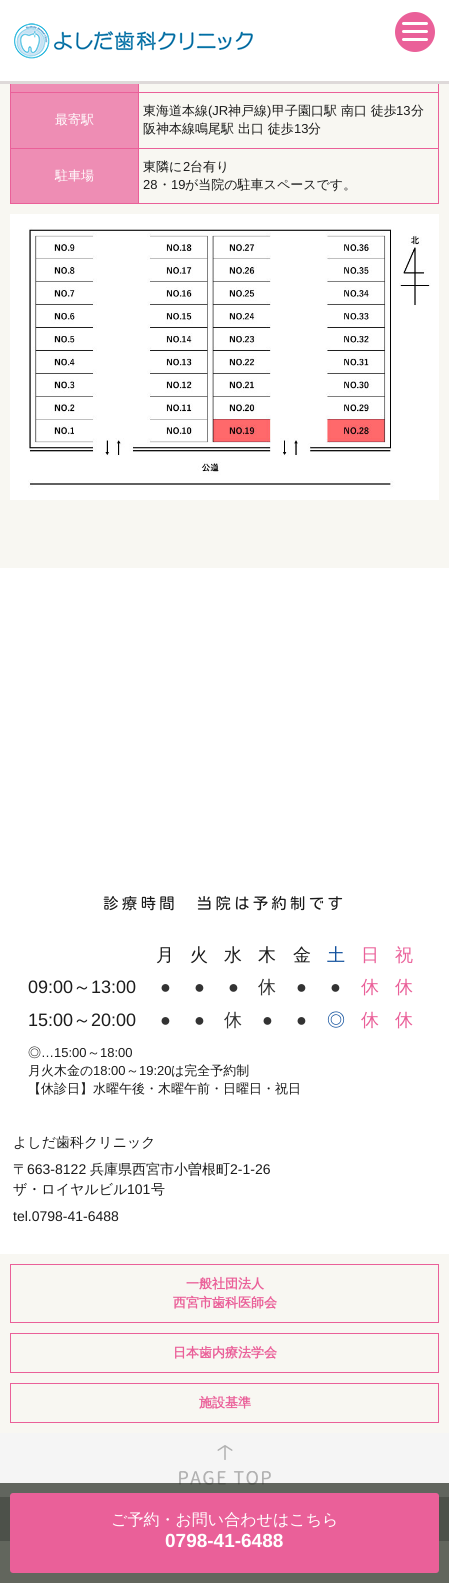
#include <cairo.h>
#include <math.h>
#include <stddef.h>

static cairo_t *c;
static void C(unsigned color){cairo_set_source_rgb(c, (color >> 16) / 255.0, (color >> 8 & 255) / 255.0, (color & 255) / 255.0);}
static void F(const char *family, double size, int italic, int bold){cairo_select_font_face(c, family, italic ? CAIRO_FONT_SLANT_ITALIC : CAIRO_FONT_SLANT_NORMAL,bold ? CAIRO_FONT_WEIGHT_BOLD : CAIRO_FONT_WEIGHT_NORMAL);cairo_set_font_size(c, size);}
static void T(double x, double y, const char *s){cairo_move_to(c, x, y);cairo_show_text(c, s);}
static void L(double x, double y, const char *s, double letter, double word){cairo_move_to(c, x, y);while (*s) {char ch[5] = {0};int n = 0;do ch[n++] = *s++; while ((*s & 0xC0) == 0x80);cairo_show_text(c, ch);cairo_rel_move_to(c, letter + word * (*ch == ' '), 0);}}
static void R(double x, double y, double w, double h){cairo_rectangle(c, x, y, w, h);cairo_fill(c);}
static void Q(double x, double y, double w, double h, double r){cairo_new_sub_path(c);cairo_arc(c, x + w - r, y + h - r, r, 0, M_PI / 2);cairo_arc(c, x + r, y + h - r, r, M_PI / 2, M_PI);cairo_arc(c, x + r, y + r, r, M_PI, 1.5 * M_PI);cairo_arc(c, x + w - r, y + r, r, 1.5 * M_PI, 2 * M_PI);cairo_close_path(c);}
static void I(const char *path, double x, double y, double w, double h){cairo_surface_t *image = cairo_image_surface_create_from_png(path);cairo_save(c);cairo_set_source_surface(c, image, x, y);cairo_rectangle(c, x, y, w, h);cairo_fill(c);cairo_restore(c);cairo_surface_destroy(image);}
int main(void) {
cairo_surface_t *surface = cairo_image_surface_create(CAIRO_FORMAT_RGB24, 449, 1583);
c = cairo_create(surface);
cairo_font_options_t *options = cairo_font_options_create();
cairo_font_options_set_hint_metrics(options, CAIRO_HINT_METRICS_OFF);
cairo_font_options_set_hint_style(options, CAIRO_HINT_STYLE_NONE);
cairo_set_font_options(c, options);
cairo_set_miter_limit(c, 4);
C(0xf8f7f2);
cairo_paint(c);
C(0xffffff);
R(0,0,449,81);
C(0xded9d9);
R(0,81,449,3);
I("1.png",14,23,239,36);
C(0xea6099);
cairo_arc(c,415,32,20,0,2 * M_PI);
cairo_fill(c);
C(0xffffff);
Q(402,22,26,3,1.5);
cairo_fill(c);
Q(402,30,26,3,1.5);
cairo_fill(c);
Q(402,38,26,3,1.5);
cairo_fill(c);
C(0xee8db4);
R(11,84,127,8);
C(0xea6099);
R(138,92,301,1);
R(138,148,301,1);
R(438,148,1,56);
R(138,203,301,1);
R(138,148,1,56);
R(10,148,129,1);
R(138,92,1,57);
R(10,92,129,1);
R(138,84,1,9);
C(0xee8db4);
R(11,93,127,55);
C(0xea6099);
R(10,203,129,1);
R(10,148,1,56);
R(10,84,1,65);
F("WenQuanYi Zen Hei Medium",13,0,0);
C(0xffffff);
T(55,124,"最寄駅");
C(0xea6099);
R(438,84,1,65);
C(0x1b1b1b);
T(143,115,"東海道本線");
F("Liberation Sans",13,0,0);
T(208,115,"(JR");
F("WenQuanYi Zen Hei Medium",13,0,0);
T(228,115,"神戸線");
F("Liberation Sans",13,0,0);
T(267,115,")");
F("WenQuanYi Zen Hei Medium",13,0,0);
T(272,115,"甲子園口駅 南口 徒歩");
F("Liberation Sans",13,0,0);
T(396,115,"13");
F("WenQuanYi Zen Hei Medium",13,0,0);
T(411,115,"分");
T(143,133,"阪神本線鳴尾駅 出口 徒歩");
F("Liberation Sans",13,0,0);
T(294,133,"13");
F("WenQuanYi Zen Hei Medium",13,0,0);
T(308,133,"分");
C(0xee8db4);
R(11,149,127,54);
C(0xffffff);
T(55,180,"駐車場");
C(0x1b1b1b);
T(143,171,"東隣に");
F("Liberation Sans",13,0,0);
T(183,171,"2");
F("WenQuanYi Zen Hei Medium",13,0,0);
T(190,171,"台有り");
F("Liberation Sans",13,0,0);
T(143,189,"28");
F("WenQuanYi Zen Hei Medium",13,0,0);
T(158,189,"・");
F("Liberation Sans",13,0,0);
T(171,189,"19");
F("WenQuanYi Zen Hei Medium",13,0,0);
T(185,189,"が当院の駐車スペースです。");
I("2.png",10,214,429,286);
C(0xffffff);
R(0,568,449,686);
F("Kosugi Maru",15.6,0,0);
C(0x1b1b1b);
L(103,909,"診療時間　当院は予約制です",3.1,0);
F("WenQuanYi Zen Hei Medium",18,0,0);
T(156,961,"月");
T(190,961,"火");
T(224,961,"水");
T(258,961,"木");
T(293,961,"金");
C(0x0f4f9c);
T(327,961,"土");
C(0xea6099);
T(361,961,"日");
T(395,961,"祝");
F("Liberation Sans",18,0,0);
C(0x1b1b1b);
T(28,993,"09:00");
F("WenQuanYi Zen Hei Medium",18,0,0);
T(73,993,"～");
F("Liberation Sans",18,0,0);
T(91,993,"13:00");
C(0x333333);
T(160,993,"●");
T(194,993,"●");
T(228,993,"●");
F("WenQuanYi Zen Hei Medium",18,0,0);
T(258,993,"休");
F("Liberation Sans",18,0,0);
T(296,993,"●");
T(330,993,"●");
F("WenQuanYi Zen Hei Medium",18,0,0);
C(0xea6099);
T(361,993,"休");
T(395,993,"休");
F("Liberation Sans",18,0,0);
C(0x1b1b1b);
T(28,1026,"15:00");
F("WenQuanYi Zen Hei Medium",18,0,0);
T(73,1026,"～");
F("Liberation Sans",18,0,0);
T(91,1026,"20:00");
C(0x333333);
T(160,1026,"●");
T(194,1026,"●");
F("WenQuanYi Zen Hei Medium",18,0,0);
T(224,1026,"休");
F("Liberation Sans",18,0,0);
T(262,1026,"●");
T(296,1026,"●");
F("WenQuanYi Zen Hei Medium",18,0,0);
C(0x0f4f9c);
T(327,1026,"◎");
C(0xea6099);
T(361,1026,"休");
T(395,1026,"休");
F("WenQuanYi Zen Hei Medium",13,0,0);
C(0x1b1b1b);
T(28,1057,"◎");
F("Liberation Sans",13,0,0);
T(41,1057,"…15:00");
F("WenQuanYi Zen Hei Medium",13,0,0);
T(87,1057,"～");
F("Liberation Sans",13,0,0);
T(100,1057,"18:00");
F("WenQuanYi Zen Hei Medium",13,0,0);
T(28,1075,"月火木金の");
F("Liberation Sans",13,0,0);
T(93,1075,"18:00");
F("WenQuanYi Zen Hei Medium",13,0,0);
T(126,1075,"～");
F("Liberation Sans",13,0,0);
T(139,1075,"19:20");
F("WenQuanYi Zen Hei Medium",13,0,0);
T(171,1075,"は完全予約制");
T(28,1093,"【休診日】水曜午後・木曜午前・日曜日・祝日");
F("WenQuanYi Zen Hei Medium",14,0,0);
T(13,1147,"よしだ歯科クリニック");
T(13,1174,"〒");
F("Liberation Sans",14,0,0);
T(27,1174,"663-8122");
F("WenQuanYi Zen Hei Medium",14,0,0);
T(90,1174,"兵庫県西宮市小曽根町");
F("Liberation Sans",14,0,0);
T(230,1174,"2-1-26");
F("WenQuanYi Zen Hei Medium",14,0,0);
T(13,1194,"ザ・ロイヤルビル");
F("Liberation Sans",14,0,0);
T(127,1194,"101");
F("WenQuanYi Zen Hei Medium",14,0,0);
T(151,1194,"号");
F("Liberation Sans",14,0,0);
T(13,1221,"tel.0798-41-6488");
cairo_rectangle(c,10.5,1264.5,428,58);
C(0xea6099);
cairo_set_line_width(c,1);
cairo_stroke(c);
F("WenQuanYi Zen Hei",13,0,1);
T(186,1288,"一般社団法人");
T(173,1307,"西宮市歯科医師会");
cairo_rectangle(c,10.5,1333.5,428,39);
cairo_stroke(c);
T(173,1357,"日本歯内療法学会");
cairo_rectangle(c,10.5,1383.5,428,39);
cairo_stroke(c);
T(199,1407,"施設基準");
C(0xf5f5f5);
R(0,1433,449,64);
I("3.png",179,1445,92,40);
C(0xb1b1b1);
R(0,1497,449,44);
cairo_set_source_rgba(c,0.137,0.157,0.118,0.7);
R(0,1483,449,100);
C(0xea6099);
Q(10,1493,429,80,3);
cairo_fill(c);
F("WenQuanYi Zen Hei Medium",16,0,0);
C(0xffffff);
T(111,1525,"ご予約・お問い合わせはこちら");
F("Liberation Sans",19,0,1);
T(165,1547,"0798-41-6488");
cairo_surface_write_to_png(surface, "o.png");
cairo_font_options_destroy(options);
cairo_destroy(c);
cairo_surface_destroy(surface);
return 0;
}
